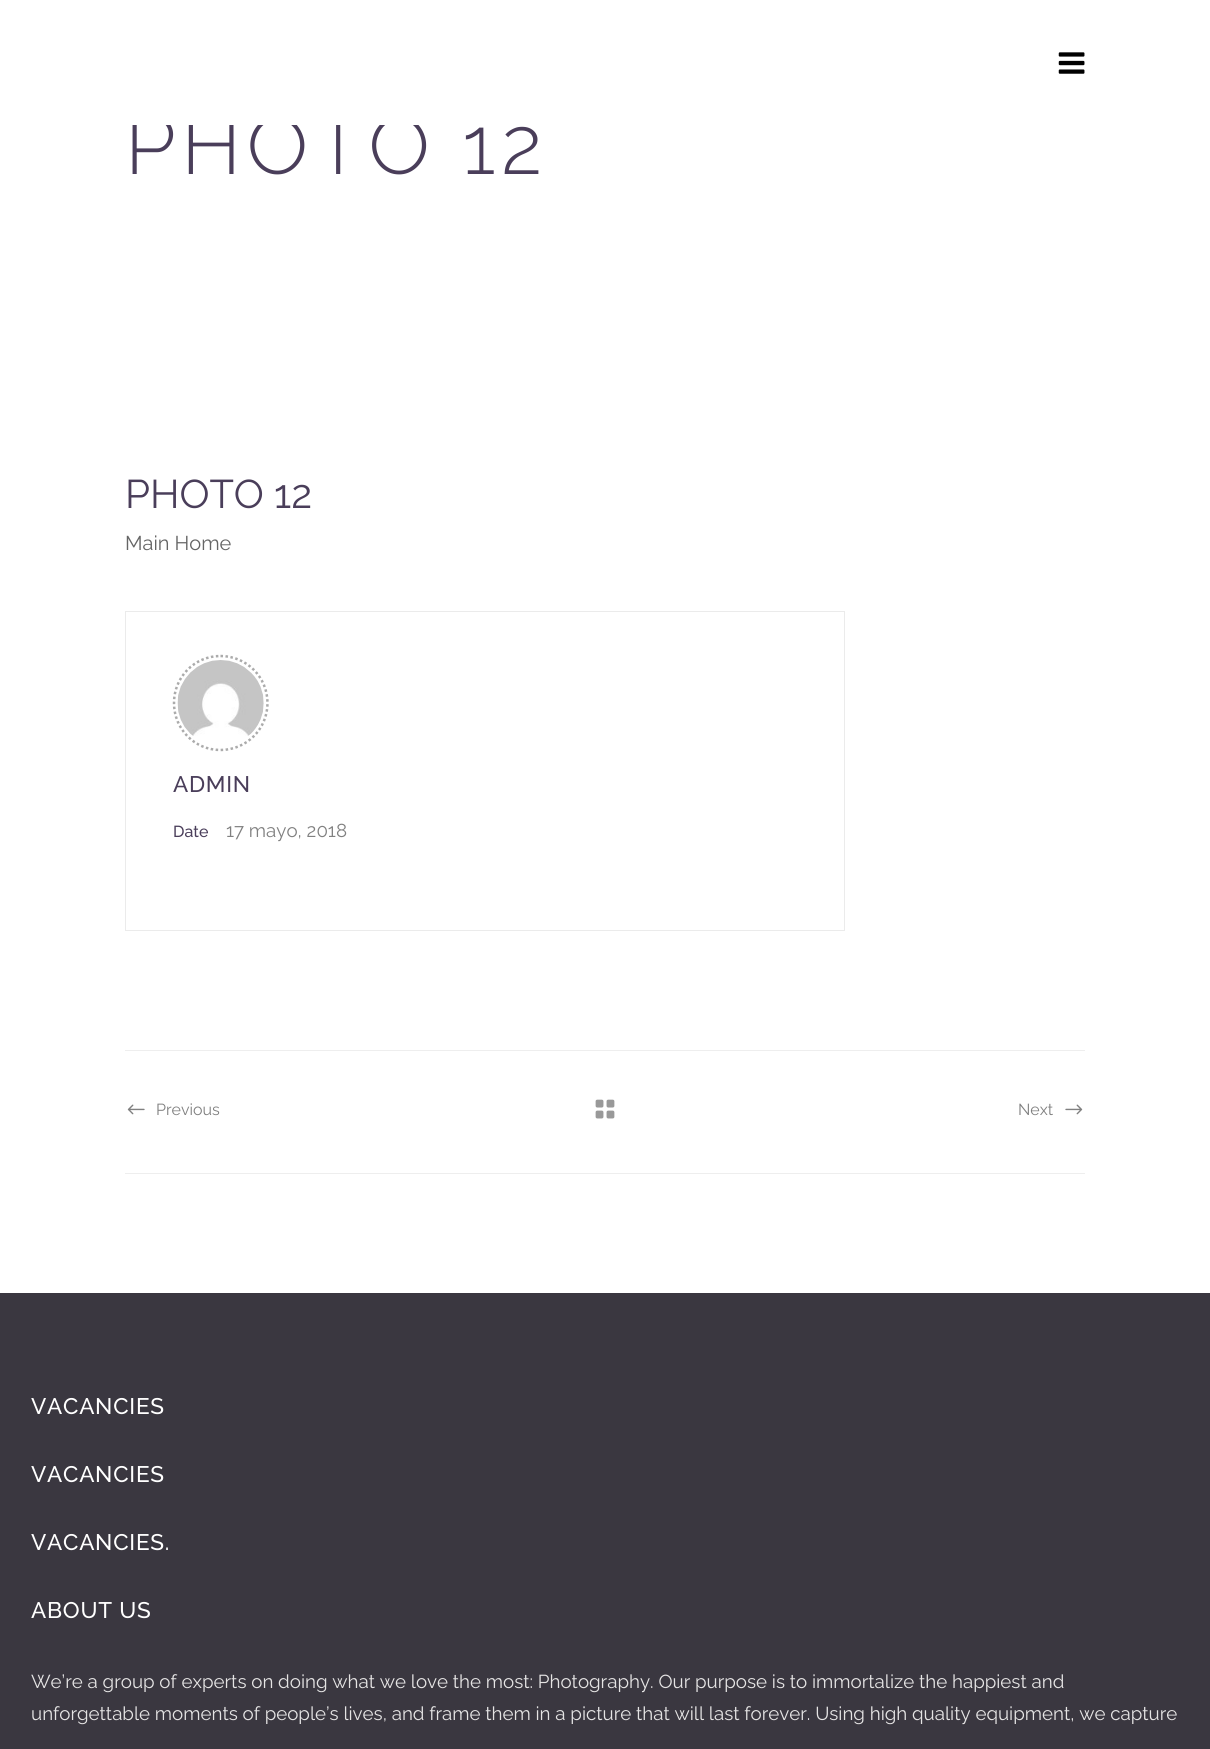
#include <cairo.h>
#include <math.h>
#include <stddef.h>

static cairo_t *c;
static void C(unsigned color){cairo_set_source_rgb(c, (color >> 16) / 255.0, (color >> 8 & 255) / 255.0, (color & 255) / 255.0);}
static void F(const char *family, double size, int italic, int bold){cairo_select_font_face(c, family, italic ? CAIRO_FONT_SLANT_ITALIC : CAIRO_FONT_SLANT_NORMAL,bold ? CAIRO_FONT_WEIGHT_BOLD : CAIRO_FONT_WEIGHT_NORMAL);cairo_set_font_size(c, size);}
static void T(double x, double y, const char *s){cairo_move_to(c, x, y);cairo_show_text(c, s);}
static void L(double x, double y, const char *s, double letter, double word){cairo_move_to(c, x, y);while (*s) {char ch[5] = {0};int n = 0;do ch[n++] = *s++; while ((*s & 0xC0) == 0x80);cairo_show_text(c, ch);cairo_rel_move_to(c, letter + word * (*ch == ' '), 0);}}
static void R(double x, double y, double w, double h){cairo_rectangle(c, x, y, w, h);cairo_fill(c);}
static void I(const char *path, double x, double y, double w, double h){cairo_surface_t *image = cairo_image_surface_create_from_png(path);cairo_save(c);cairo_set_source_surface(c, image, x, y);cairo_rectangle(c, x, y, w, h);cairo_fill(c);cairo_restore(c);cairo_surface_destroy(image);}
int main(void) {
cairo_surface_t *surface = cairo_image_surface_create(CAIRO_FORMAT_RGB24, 1210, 1749);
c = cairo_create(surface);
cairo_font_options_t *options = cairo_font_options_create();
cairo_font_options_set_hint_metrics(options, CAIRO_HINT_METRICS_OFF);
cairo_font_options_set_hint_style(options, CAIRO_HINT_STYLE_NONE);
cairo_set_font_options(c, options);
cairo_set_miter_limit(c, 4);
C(0xffffff);
cairo_paint(c);
F("Raleway Light",81.25,0,0);
C(0x4a3e5a);
L(125,174,"PHOTO 12",5.75,0);
C(0xffffff);
R(132,115,287,10);
I("1.png",1058,52,27,22);
F("Raleway",40,0,0);
C(0x4a3e5a);
T(125,508,"PHOTO 12");
F("Raleway",20,0,0);
C(0x656565);
T(125,550,"Main Home");
cairo_rectangle(c,125.5,611.5,719,319);
C(0xebebeb);
cairo_set_line_width(c,1);
cairo_stroke(c);
cairo_new_path(c);
cairo_move_to(c,220.5,656);
cairo_curve_to(c,246.5,656,267.5,677,267.5,703);
cairo_curve_to(c,267.5,729,246.5,750,220.5,750);
cairo_curve_to(c,194.5,750,174,729,174,703);
cairo_curve_to(c,174,677,194.5,656,220.5,656);
cairo_close_path(c);
C(0xababab);
cairo_set_line_width(c,2.5);
cairo_set_dash(c,(double[]){2.5,2.5},2,0);
cairo_stroke(c);
I("2.png",177,660,87,76);
F("Raleway Medium",22.5,0,0);
C(0x4a3e5a);
L(173,792,"ADMIN",.75,0);
F("Raleway Medium",16,0,0);
T(173,837,"Date");
F("Raleway",18.75,0,0);
C(0x808080);
T(226,837,"17 mayo, 2018");
C(0xeeeeee);
R(125,1050,960,1);
R(125,1173,960,1);
I("3.png",127,1104,18,11);
F("Raleway",16,0,0);
C(0x808080);
T(156,1115,"Previous");
I("4.png",595,1099,20,20);
T(1018,1115,"Next");
I("5.png",1065,1104,18,11);
C(0x3a3740);
R(0,1293,1210,456);
F("Raleway Medium",22.5,0,0);
C(0xffffff);
L(31,1414,"VACANCIES",.75,0);
L(31,1482,"VACANCIES",.75,0);
L(31,1550,"VACANCIES.",.75,0);
L(31,1618,"ABOUT US",.75,0);
F("Raleway",18.75,0,0);
C(0xe5e4e4);
T(31,1688,"We’re a group of experts on doing what we love the most: Photography. Our purpose is to immortalize the happiest and");
T(31,1720,"unforgettable moments of people’s lives, and frame them in a picture that will last forever. Using high quality equipment, we capture");
cairo_surface_write_to_png(surface, "o.png");
cairo_font_options_destroy(options);
cairo_destroy(c);
cairo_surface_destroy(surface);
return 0;
}
